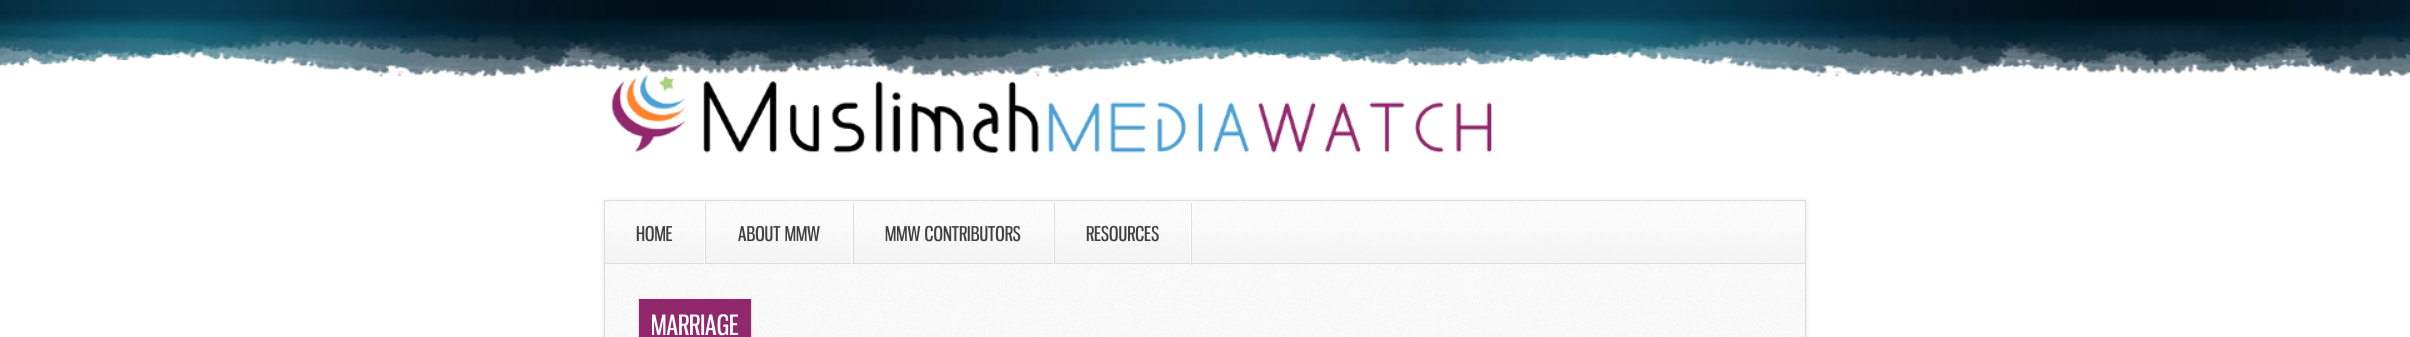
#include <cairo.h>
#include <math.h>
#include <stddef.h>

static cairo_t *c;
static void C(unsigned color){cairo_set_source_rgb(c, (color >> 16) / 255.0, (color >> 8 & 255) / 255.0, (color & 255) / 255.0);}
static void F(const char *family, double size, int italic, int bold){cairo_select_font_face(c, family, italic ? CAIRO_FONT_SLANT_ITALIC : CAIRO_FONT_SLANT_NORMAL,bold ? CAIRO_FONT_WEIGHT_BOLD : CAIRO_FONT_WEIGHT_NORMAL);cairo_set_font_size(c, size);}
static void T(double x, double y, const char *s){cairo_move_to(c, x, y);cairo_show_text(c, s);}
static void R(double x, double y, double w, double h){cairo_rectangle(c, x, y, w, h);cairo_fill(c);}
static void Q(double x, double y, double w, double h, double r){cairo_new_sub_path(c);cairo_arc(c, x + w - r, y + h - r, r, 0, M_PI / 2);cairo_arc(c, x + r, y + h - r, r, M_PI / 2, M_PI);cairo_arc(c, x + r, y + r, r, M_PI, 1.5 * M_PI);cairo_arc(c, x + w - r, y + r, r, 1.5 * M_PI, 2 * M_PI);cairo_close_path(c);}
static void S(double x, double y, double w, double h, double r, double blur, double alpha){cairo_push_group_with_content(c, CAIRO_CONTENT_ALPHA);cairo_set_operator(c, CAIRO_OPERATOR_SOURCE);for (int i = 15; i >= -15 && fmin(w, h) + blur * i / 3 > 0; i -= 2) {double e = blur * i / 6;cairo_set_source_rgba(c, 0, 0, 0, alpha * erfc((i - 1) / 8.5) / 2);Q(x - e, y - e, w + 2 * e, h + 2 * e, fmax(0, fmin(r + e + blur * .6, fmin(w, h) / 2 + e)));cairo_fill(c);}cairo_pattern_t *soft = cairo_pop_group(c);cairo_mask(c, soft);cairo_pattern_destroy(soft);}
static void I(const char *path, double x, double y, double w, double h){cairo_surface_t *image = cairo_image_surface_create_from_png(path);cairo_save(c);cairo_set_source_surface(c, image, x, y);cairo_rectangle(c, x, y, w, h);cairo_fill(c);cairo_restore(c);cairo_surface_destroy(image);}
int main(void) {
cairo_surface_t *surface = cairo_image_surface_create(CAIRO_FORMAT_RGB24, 2410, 337);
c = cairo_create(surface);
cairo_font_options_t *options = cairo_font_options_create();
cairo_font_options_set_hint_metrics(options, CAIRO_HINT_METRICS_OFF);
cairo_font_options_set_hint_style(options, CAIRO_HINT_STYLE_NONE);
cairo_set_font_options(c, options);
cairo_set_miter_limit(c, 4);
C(0xffffff);
cairo_paint(c);
I("1.png",0,0,2410,78);
I("2.png",611,75,881,78);
C(0x000000);
S(604,201,1202,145,0,3,.1);
I("4.png",605,201,1200,136);
cairo_rectangle(c,604.5,200.5,1201,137);
C(0xdddddd);
cairo_set_line_width(c,1);
cairo_stroke(c);
I("3.png",605,203,1200,60);
R(605,263,1200,1);
C(0xffffff);
R(704,203,1,61);
F("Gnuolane",20,0,0);
C(0x404040);
T(636,241,"HOME");
C(0xffffff);
R(851,203,1,61);
C(0xdddddd);
R(705,203,1,61);
C(0x404040);
T(738,241,"ABOUT MMW");
C(0xffffff);
R(1053,203,1,61);
C(0xdddddd);
R(853,203,1,61);
C(0x404040);
T(885,241,"MMW CONTRIBUTORS");
C(0xffffff);
R(1190,203,1,61);
C(0xdddddd);
R(1054,203,1,61);
C(0x404040);
T(1086,241,"RESOURCES");
C(0xdddddd);
R(1191,203,1,62);
C(0x000000);
S(639,300,112,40,0,1,.3);
C(0x91286c);
R(639,299,112,38);
F("Gnuolane",27.5,0,0);
C(0xffffff);
T(651,335,"MARRIAGE");
cairo_surface_write_to_png(surface, "o.png");
cairo_font_options_destroy(options);
cairo_destroy(c);
cairo_surface_destroy(surface);
return 0;
}
